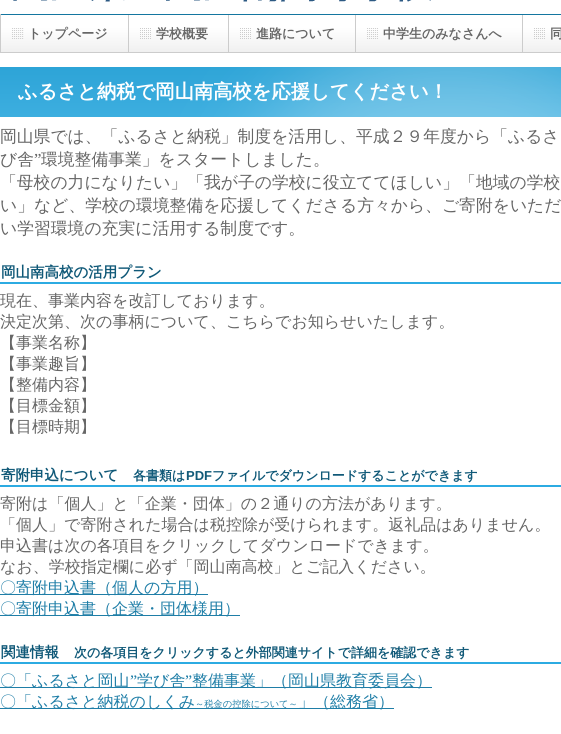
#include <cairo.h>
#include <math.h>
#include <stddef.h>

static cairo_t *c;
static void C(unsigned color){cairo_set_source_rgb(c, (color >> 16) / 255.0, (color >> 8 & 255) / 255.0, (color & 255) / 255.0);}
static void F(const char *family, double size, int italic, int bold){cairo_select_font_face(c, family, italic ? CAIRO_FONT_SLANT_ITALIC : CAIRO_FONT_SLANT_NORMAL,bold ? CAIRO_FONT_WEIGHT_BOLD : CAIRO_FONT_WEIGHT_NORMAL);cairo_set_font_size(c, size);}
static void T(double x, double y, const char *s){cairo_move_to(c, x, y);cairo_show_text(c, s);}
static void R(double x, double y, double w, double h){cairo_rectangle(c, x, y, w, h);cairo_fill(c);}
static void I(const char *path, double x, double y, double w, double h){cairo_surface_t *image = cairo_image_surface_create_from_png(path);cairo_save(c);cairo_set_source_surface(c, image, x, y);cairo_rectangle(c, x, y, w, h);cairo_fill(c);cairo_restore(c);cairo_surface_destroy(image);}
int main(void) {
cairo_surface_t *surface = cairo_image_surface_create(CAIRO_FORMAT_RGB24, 561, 734);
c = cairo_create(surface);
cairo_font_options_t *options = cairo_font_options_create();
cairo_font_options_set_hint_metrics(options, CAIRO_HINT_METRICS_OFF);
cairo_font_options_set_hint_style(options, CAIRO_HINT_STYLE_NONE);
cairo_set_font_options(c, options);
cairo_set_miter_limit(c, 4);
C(0xffffff);
cairo_paint(c);
I("1.png",0,14,561,39);
I("2.png",13,0,418,2);
C(0xcccccc);
R(0,14,1,38);
R(128,15,1,37);
I("3.png",12,28,12,11);
F("WenQuanYi Zen Hei",13,0,1);
C(0x666666);
T(28,38,"トップページ");
C(0xcccccc);
R(228,15,1,37);
I("4.png",140,28,11,11);
C(0x666666);
T(156,38,"学校概要");
C(0xcccccc);
R(355,15,1,37);
I("4.png",240,28,11,11);
C(0x666666);
T(256,38,"進路について");
C(0xcccccc);
R(522,15,1,37);
I("5.png",367,28,11,11);
C(0x666666);
T(383,38,"中学生のみなさんへ");
I("6.png",534,28,11,11);
T(550,38,"同");
I("7.png",0,67,561,50);
F("WenQuanYi Zen Hei",19.3,0,1);
C(0xffffff);
T(18,98,"ふるさと納税で岡山南高校を応援してください！");
F("WenQuanYi Zen Hei Medium",16.8,0,0);
C(0x666666);
T(0,142,"岡山県では、「ふるさと納税」制度を活用し、平成２９年度から「ふるさ");
T(0,165,"び舎");
F("Liberation Serif",16.8,0,0);
T(34,165,"”");
F("WenQuanYi Zen Hei Medium",16.8,0,0);
T(41,165,"環境整備事業」をスタートしました。");
T(0,188,"「母校の力になりたい」「我が子の学校に役立ててほしい」「地域の学校");
T(0,211,"い」など、学校の環境整備を応援してくださる方々から、ご寄附をいただ");
T(0,234,"い学習環境の充実に活用する制度です。");
C(0x2cabe2);
R(0,282,561,2);
F("WenQuanYi Zen Hei",14.5,0,1);
C(0x105978);
T(1,277,"岡山南高校の活用プラン");
F("WenQuanYi Zen Hei Medium",16,0,0);
C(0x666666);
T(0,306,"現在、事業内容を改訂しております。");
T(0,327,"決定次第、次の事柄について、こちらでお知らせいたします。");
T(0,348,"【事業名称】");
T(0,369,"【事業趣旨】");
T(0,390,"【整備内容】");
T(0,411,"【目標金額】");
T(0,432,"【目標時期】");
C(0x2cabe2);
R(0,485,561,2);
F("WenQuanYi Zen Hei",14.5,0,1);
C(0x105978);
T(1,480,"寄附申込について");
F("WenQuanYi Zen Hei",13,0,1);
T(133,480,"各書類は");
F("Liberation Sans",13,0,1);
T(186,480,"PDF");
F("WenQuanYi Zen Hei",13,0,1);
T(212,480,"ファイルでダウンロードすることができます");
F("WenQuanYi Zen Hei Medium",16,0,0);
C(0x666666);
T(0,509,"寄附は「個人」と「企業・団体」の２通りの方法があります。");
T(0,530,"「個人」で寄附された場合は税控除が受けられます。返礼品はありません。");
T(0,551,"申込書は次の各項目をクリックしてダウンロードできます。");
T(0,572,"なお、学校指定欄に必ず「岡山南高校」とご記入ください。");
C(0x1f7ea7);
R(0,594,208,1);
T(0,593,"〇寄附申込書（個人の方用）");
R(0,615,240,1);
T(0,614,"〇寄附申込書（企業・団体様用）");
C(0x2cabe2);
R(0,662,561,2);
F("WenQuanYi Zen Hei",14.5,0,1);
C(0x105978);
T(1,657,"関連情報");
F("WenQuanYi Zen Hei",13,0,1);
T(74,657,"次の各項目をクリックすると外部関連サイトで詳細を確認できます");
C(0x1f7ea7);
R(0,687,432,1);
F("WenQuanYi Zen Hei Medium",16,0,0);
T(0,686,"〇「ふるさと岡山");
F("Liberation Serif",16,0,0);
T(130,686,"”");
F("WenQuanYi Zen Hei Medium",16,0,0);
T(137,686,"学び舎");
F("Liberation Serif",16,0,0);
T(185,686,"”");
F("WenQuanYi Zen Hei Medium",16,0,0);
T(192,686,"整備事業」（岡山県教育委員会）");
R(0,708,394,1);
T(0,707,"〇「ふるさと納税のしくみ");
F("WenQuanYi Zen Hei Medium",9.25,0,0);
T(195,707,"～税金の控除について～");
F("WenQuanYi Zen Hei Medium",16,0,0);
T(298,707,"」（総務省）");
cairo_surface_write_to_png(surface, "o.png");
cairo_font_options_destroy(options);
cairo_destroy(c);
cairo_surface_destroy(surface);
return 0;
}
